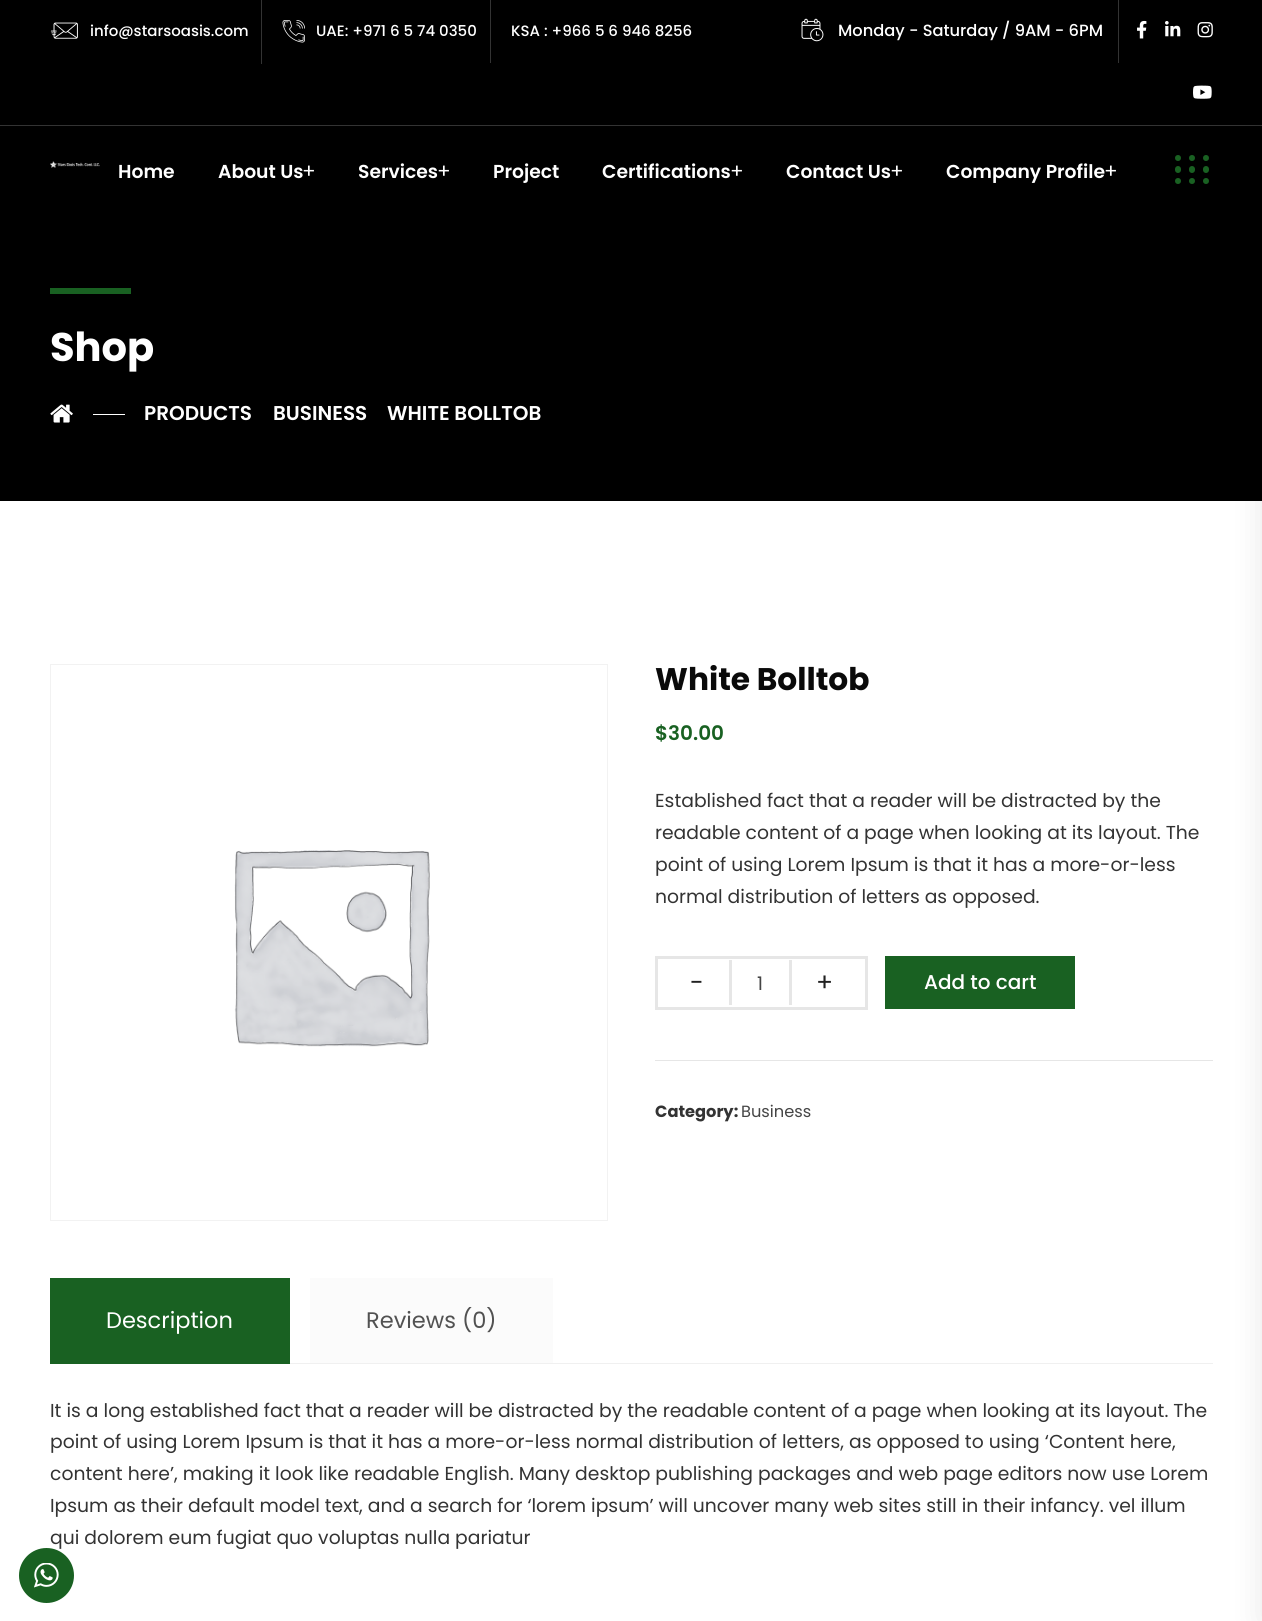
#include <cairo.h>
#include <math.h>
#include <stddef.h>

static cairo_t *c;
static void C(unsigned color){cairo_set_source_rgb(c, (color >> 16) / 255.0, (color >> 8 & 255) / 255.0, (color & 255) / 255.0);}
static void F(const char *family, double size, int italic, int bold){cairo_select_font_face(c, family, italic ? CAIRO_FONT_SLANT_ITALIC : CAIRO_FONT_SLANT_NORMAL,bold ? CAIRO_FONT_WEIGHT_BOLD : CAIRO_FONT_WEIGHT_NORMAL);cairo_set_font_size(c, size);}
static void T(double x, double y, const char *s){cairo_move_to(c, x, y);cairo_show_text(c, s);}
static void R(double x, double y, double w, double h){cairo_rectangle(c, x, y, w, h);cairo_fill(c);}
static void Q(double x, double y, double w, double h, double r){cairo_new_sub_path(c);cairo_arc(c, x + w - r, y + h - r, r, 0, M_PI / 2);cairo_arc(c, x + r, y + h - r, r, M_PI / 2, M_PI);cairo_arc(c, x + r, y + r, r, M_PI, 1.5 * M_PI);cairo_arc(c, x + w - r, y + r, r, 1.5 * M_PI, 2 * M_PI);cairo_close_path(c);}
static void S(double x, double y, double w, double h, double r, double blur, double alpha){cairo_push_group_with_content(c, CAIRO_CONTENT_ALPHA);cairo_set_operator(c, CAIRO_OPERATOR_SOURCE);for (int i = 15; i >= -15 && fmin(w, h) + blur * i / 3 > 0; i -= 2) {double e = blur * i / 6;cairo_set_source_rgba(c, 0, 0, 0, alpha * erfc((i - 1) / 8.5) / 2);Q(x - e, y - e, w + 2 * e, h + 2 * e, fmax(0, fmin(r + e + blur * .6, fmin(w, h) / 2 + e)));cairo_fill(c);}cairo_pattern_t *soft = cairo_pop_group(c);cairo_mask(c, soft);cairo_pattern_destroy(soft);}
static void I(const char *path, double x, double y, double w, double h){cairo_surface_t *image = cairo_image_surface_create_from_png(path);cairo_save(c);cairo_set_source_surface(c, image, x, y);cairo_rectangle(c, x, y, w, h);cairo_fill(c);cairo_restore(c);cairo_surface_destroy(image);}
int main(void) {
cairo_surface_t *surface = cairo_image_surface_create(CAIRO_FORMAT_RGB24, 1262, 1621);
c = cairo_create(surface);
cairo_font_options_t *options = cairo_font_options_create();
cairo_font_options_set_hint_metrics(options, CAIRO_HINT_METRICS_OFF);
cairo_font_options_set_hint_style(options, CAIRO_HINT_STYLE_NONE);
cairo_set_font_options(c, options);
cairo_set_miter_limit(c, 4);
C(0xffffff);
cairo_paint(c);
C(0x000000);
R(0,0,1262,501);
C(0x333333);
R(0,125,1262,1);
R(261,0,1,64);
I("1.png",50,22,28,17);
F("Poppins Medium",15,0,0);
C(0xffffff);
T(90,36,"info@starsoasis.com");
C(0x333333);
R(490,0,1,63);
I("2.png",282,20,23,23);
C(0xffffff);
T(316,36,"UAE: +971 6 5 74 0350");
T(511,36,"KSA : +966 5 6 946 8256");
C(0x333333);
R(1118,0,1,63);
I("3.png",801,18,23,24);
F("Poppins Medium",16.25,0,0);
C(0xffffff);
T(838,36,"Monday - Saturday / 9AM - 6PM");
I("4.png",1137,20,10,19);
I("5.png",1165,21,16,16);
I("6.png",1197,22,16,16);
I("7.png",1193,85,19,14);
I("8.png",50,161,50,7);
F("Poppins SemiBold",18.75,0,0);
T(118,178,"Home");
T(218,178,"About Us");
F("Poppins",20,0,0);
T(302,178,"+");
F("Poppins SemiBold",18.75,0,0);
T(358,178,"Services");
F("Poppins",20,0,0);
T(437,178,"+");
F("Poppins SemiBold",18.75,0,0);
T(493,178,"Project");
T(602,178,"Certifications");
F("Poppins",20,0,0);
T(730,178,"+");
F("Poppins SemiBold",18.75,0,0);
T(786,178,"Contact Us");
F("Poppins",20,0,0);
T(890,178,"+");
F("Poppins SemiBold",18.75,0,0);
T(946,178,"Company Profile");
F("Poppins",20,0,0);
T(1104,178,"+");
C(0x196122);
cairo_new_path(c);
cairo_arc(c,1178,158,3,0,2 * M_PI);
cairo_fill(c);
cairo_arc(c,1192,158,3,0,2 * M_PI);
cairo_fill(c);
cairo_arc(c,1206,158,3,0,2 * M_PI);
cairo_fill(c);
Q(1175,166,6,7,3);
cairo_fill(c);
Q(1189,166,6,7,3);
cairo_fill(c);
Q(1203,166,6,7,3);
cairo_fill(c);
cairo_arc(c,1178,181,3,0,2 * M_PI);
cairo_fill(c);
cairo_arc(c,1192,181,3,0,2 * M_PI);
cairo_fill(c);
cairo_arc(c,1206,181,3,0,2 * M_PI);
cairo_fill(c);
R(50,288,81,6);
F("Poppins",40,0,1);
C(0xffffff);
T(50,361,"Shop");
I("9.png",50,404,23,19);
R(93,414,32,1);
F("Poppins SemiBold",20,0,0);
T(144,420,"PRODUCTS");
T(273,420,"BUSINESS");
T(387,420,"WHITE BOLLTOB");
C(0x000000);
S(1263,0,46,1621,0,15.5,.1);
cairo_rectangle(c,50.5,664.5,557,556);
C(0xf2f2f2);
cairo_set_line_width(c,1);
cairo_stroke(c);
I("10.png",234,850,196,197);
F("Poppins",31.25,0,1);
C(0x0a0a0a);
T(655,690,"White Bolltob");
F("Poppins SemiBold",20,0,0);
C(0x196122);
T(655,740,"$30.00");
F("Poppins",18.75,0,0);
C(0x333333);
T(655,807,"Established fact that a reader will be distracted by the");
T(655,839,"readable content of a page when looking at its layout. The");
T(655,871,"point of using Lorem Ipsum is that it has a more-or-less");
T(655,903,"normal distribution of letters as opposed.");
C(0xe6e6e6);
R(655,1060,558,1);
cairo_rectangle(c,656.5,957.5,210,51);
cairo_set_line_width(c,3);
cairo_stroke(c);
F("Poppins",25,0,0);
C(0x212121);
T(690,991,"-");
C(0xe6e6e6);
R(789,960,3,45);
R(729,960,3,45);
F("Poppins",18.75,0,0);
C(0x454545);
T(757,990,"1");
F("Poppins",25,0,0);
C(0x212121);
T(816,991,"+");
C(0x196122);
R(885,956,190,53);
F("Poppins Medium",20,0,0);
C(0xffffff);
T(924,989,"Add to cart");
F("Poppins",16.25,0,1);
C(0x333333);
T(655,1117,"Category:");
F("Poppins",16.25,0,0);
C(0x454545);
T(741,1117,"Business");
C(0x196122);
R(50,1278,240,86);
F("Poppins",22.5,0,0);
C(0xffffff);
T(106,1328,"Description");
C(0xfbfbfb);
R(310,1278,243,85);
C(0x515151);
T(366,1328,"Reviews (0)");
C(0xf0f0f0);
R(290,1363,923,1);
F("Poppins",18.75,0,0);
C(0x333333);
T(50,1417,"It is a long established fact that a reader will be distracted by the readable content of a page when looking at its layout. The");
T(50,1448,"point of using Lorem Ipsum is that it has a more-or-less normal distribution of letters, as opposed to using ‘Content here,");
T(50,1480,"content here’, making it look like readable English. Many desktop publishing packages and web page editors now use Lorem");
T(50,1512,"Ipsum as their default model text, and a search for ‘lorem ipsum’ will uncover many web sites still in their infancy. vel illum");
T(50,1544,"qui dolorem eum fugiat quo voluptas nulla pariatur");
C(0x196122);
cairo_new_path(c);
cairo_arc(c,46.5,1575.5,27.5,0,2 * M_PI);
cairo_fill(c);
I("11.png",34,1563,25,25);
cairo_surface_write_to_png(surface, "o.png");
cairo_font_options_destroy(options);
cairo_destroy(c);
cairo_surface_destroy(surface);
return 0;
}
